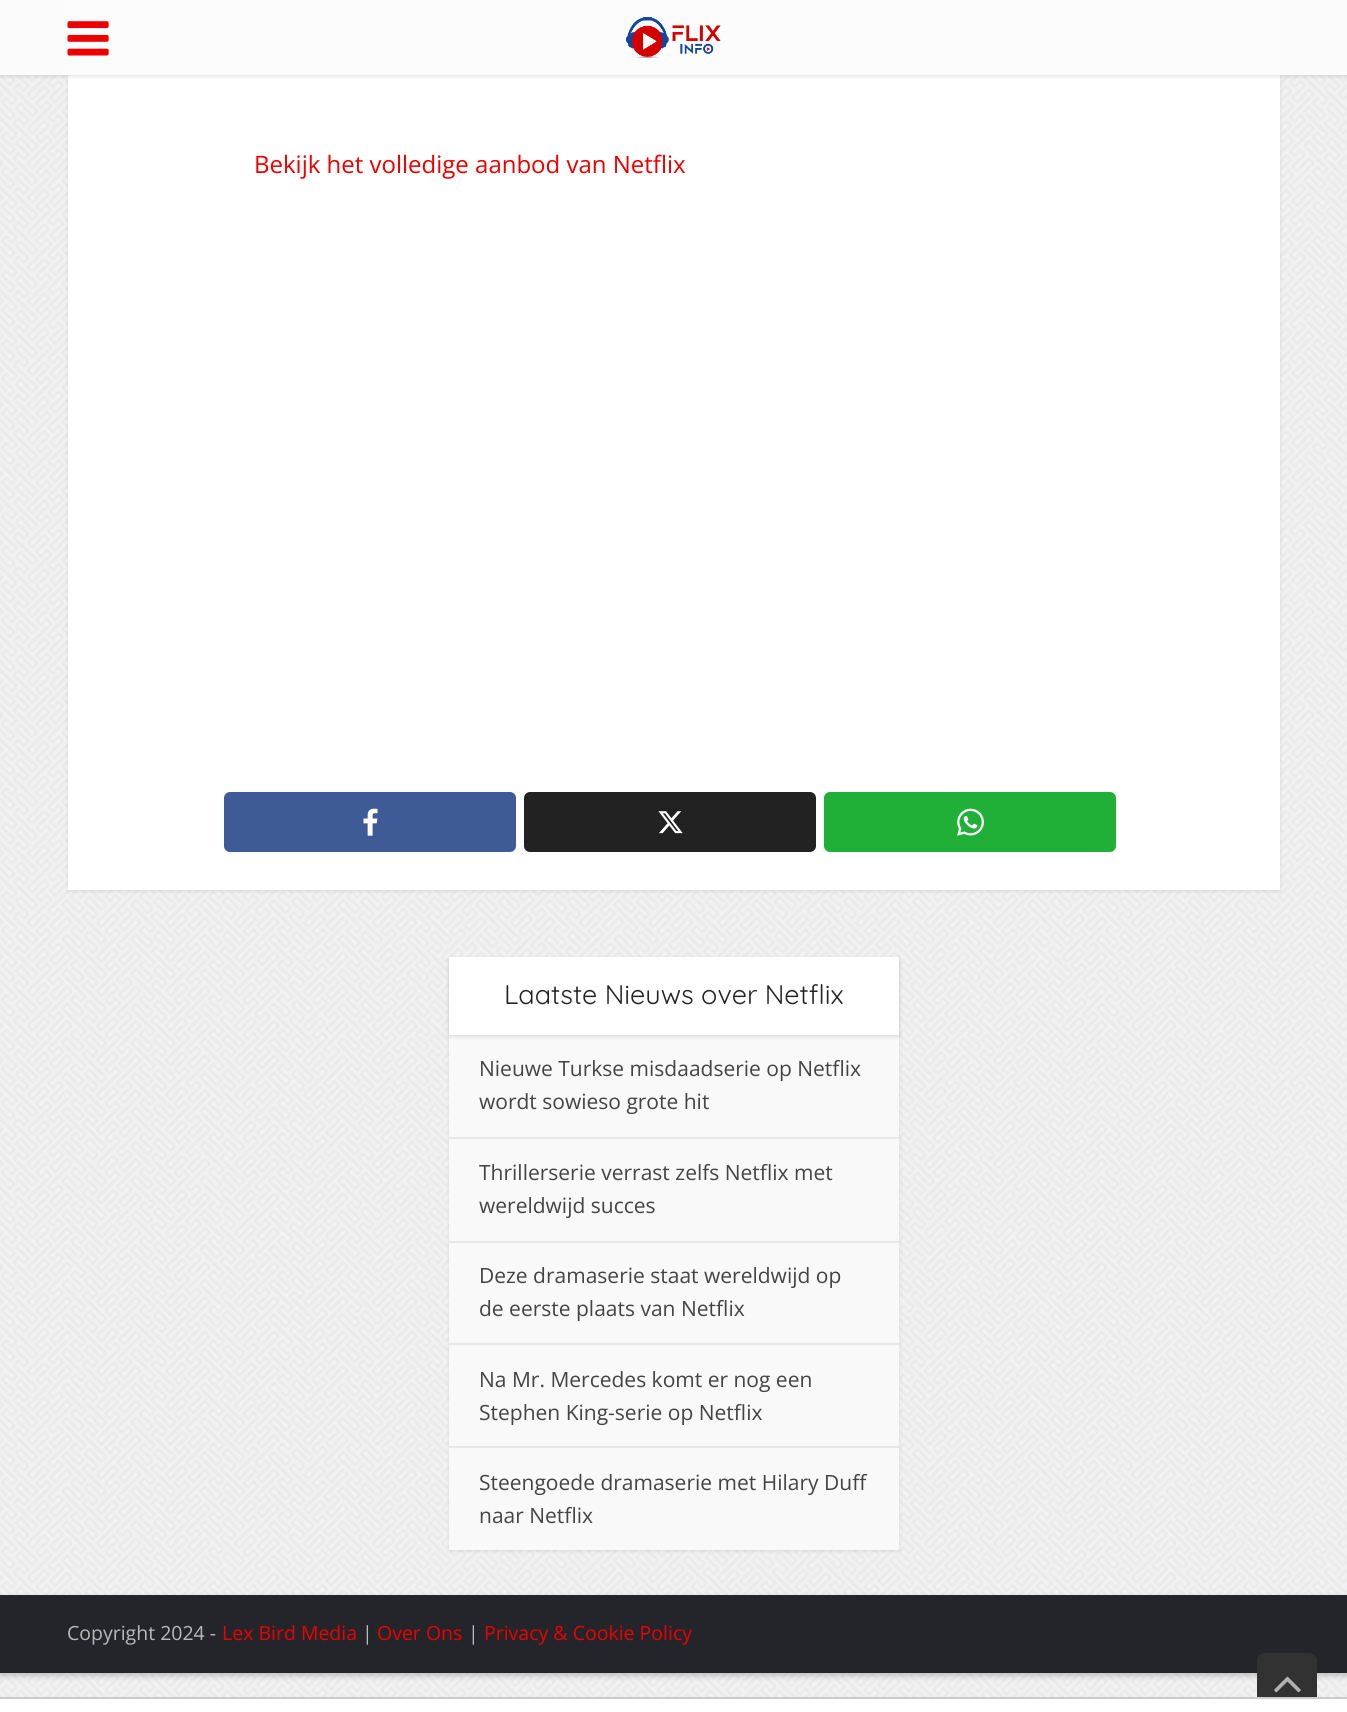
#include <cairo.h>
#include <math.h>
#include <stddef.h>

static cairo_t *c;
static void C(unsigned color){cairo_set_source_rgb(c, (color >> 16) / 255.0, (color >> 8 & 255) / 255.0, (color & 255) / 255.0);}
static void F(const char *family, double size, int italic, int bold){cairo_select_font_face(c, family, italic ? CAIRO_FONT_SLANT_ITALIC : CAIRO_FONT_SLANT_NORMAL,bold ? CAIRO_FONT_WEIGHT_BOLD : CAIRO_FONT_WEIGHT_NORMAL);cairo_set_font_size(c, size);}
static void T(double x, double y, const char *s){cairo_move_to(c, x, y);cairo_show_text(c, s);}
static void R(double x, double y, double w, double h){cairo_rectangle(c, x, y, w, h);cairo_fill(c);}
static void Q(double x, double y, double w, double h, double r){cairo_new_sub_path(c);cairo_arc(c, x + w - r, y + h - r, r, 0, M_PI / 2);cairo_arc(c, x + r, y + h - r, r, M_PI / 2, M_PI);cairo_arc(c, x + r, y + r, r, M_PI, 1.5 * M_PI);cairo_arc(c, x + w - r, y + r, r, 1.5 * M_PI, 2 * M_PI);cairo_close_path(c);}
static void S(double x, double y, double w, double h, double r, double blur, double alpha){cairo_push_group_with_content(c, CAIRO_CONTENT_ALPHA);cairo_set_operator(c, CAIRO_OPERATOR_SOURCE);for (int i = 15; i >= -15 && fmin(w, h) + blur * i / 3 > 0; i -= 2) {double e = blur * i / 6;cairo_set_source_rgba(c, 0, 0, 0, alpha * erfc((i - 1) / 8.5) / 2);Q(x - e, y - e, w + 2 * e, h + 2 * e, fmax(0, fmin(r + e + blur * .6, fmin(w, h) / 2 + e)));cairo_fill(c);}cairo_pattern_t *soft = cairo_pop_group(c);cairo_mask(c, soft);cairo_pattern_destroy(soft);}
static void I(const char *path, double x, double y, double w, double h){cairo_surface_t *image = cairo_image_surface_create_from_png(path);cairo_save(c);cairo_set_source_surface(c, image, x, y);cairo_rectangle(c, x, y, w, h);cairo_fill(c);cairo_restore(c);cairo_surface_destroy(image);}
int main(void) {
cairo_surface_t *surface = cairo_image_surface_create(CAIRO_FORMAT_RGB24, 1347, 1712);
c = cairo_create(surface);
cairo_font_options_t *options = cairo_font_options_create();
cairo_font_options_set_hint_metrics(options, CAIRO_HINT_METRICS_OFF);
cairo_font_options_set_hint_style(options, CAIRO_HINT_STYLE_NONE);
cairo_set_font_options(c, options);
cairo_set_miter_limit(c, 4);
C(0xffffff);
cairo_paint(c);
I("1.png",0,0,1347,1697);
C(0x000000);
S(68,-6,1212,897,0,2,.1);
C(0xffffff);
R(68,0,1212,890);
cairo_save(c);
cairo_rectangle(c,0,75,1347,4);
cairo_clip(c);
C(0x000000);
S(0,2,1347,75,0,2,.1);
cairo_restore(c);
cairo_set_source_rgba(c,0.988,0.988,0.988,0.95);
R(0,0,1347,75);
I("2.png",67,21,42,35);
I("3.png",626,17,95,41);
F("Open Sans",24,0,0);
C(0xee0000);
T(254,173,"Bekijk het volledige aanbod van Netflix");
C(0x3e5b98);
Q(224,792,292,60,6);
cairo_fill(c);
I("4.png",363,808,15,28);
C(0x222222);
Q(524,792,292,60,6);
cairo_fill(c);
I("5.png",658,811,25,23);
C(0x20b038);
Q(824,792,292,60,6);
cairo_fill(c);
I("6.png",957,808,27,28);
C(0x000000);
S(449,959,450,592,0,2,.1);
C(0xf9f9f9);
R(449,1035,450,515);
C(0x000000);
S(449,959,450,78,0,2,.1);
C(0xffffff);
R(449,957,450,78);
F("Quicksand Light",27,0,0);
C(0x232323);
T(504,1004,"Laatste Nieuws over Netflix");
C(0xe8e8e8);
R(449,1137,450,2);
F("Open Sans",21,0,0);
C(0x444444);
T(479,1076,"Nieuwe Turkse misdaadserie op Netflix");
T(479,1109,"wordt sowieso grote hit");
C(0xe8e8e8);
R(449,1241,450,2);
C(0x444444);
T(479,1180,"Thrillerserie verrast zelfs Netflix met");
T(479,1213,"wereldwijd succes");
C(0xe8e8e8);
R(449,1343,450,2);
C(0x444444);
T(479,1283,"Deze dramaserie staat wereldwijd op");
T(479,1316,"de eerste plaats van Netflix");
C(0xe8e8e8);
R(449,1446,450,2);
C(0x444444);
T(479,1387,"Na Mr. Mercedes komt er nog een");
T(479,1420,"Stephen King-serie op Netflix");
T(479,1490,"Steengoede dramaserie met Hilary Duff");
T(479,1523,"naar Netflix");
C(0x000000);
S(0,1598,1347,78,0,3,.2);
C(0x24252a);
R(0,1595,1347,78);
F("Open Sans",19.5,0,0);
C(0xb9b9bb);
T(67,1640,"Copyright 2024 -");
C(0xee0000);
T(222,1640,"Lex Bird Media");
C(0xb9b9bb);
T(362,1640,"|");
C(0xee0000);
T(377,1640,"Over Ons");
C(0xb9b9bb);
T(468,1640,"|");
C(0xee0000);
T(484,1640,"Privacy & Cookie Policy");
C(0x323232);
cairo_new_path(c);
cairo_move_to(c,1265,1653);
cairo_line_to(c,1309,1653);
cairo_curve_to(c,1313.5,1653,1317,1656.5,1317,1661);
cairo_line_to(c,1317,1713);
cairo_line_to(c,1257,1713);
cairo_line_to(c,1257,1661);
cairo_curve_to(c,1257,1656.5,1260.5,1653,1265,1653);
cairo_close_path(c);
cairo_fill(c);
I("7.png",1274,1676,27,17);
C(0xffffff);
R(1257,1699,60,13);
C(0xcccccc);
R(0,1697,1347,2);
cairo_surface_write_to_png(surface, "o.png");
cairo_font_options_destroy(options);
cairo_destroy(c);
cairo_surface_destroy(surface);
return 0;
}
